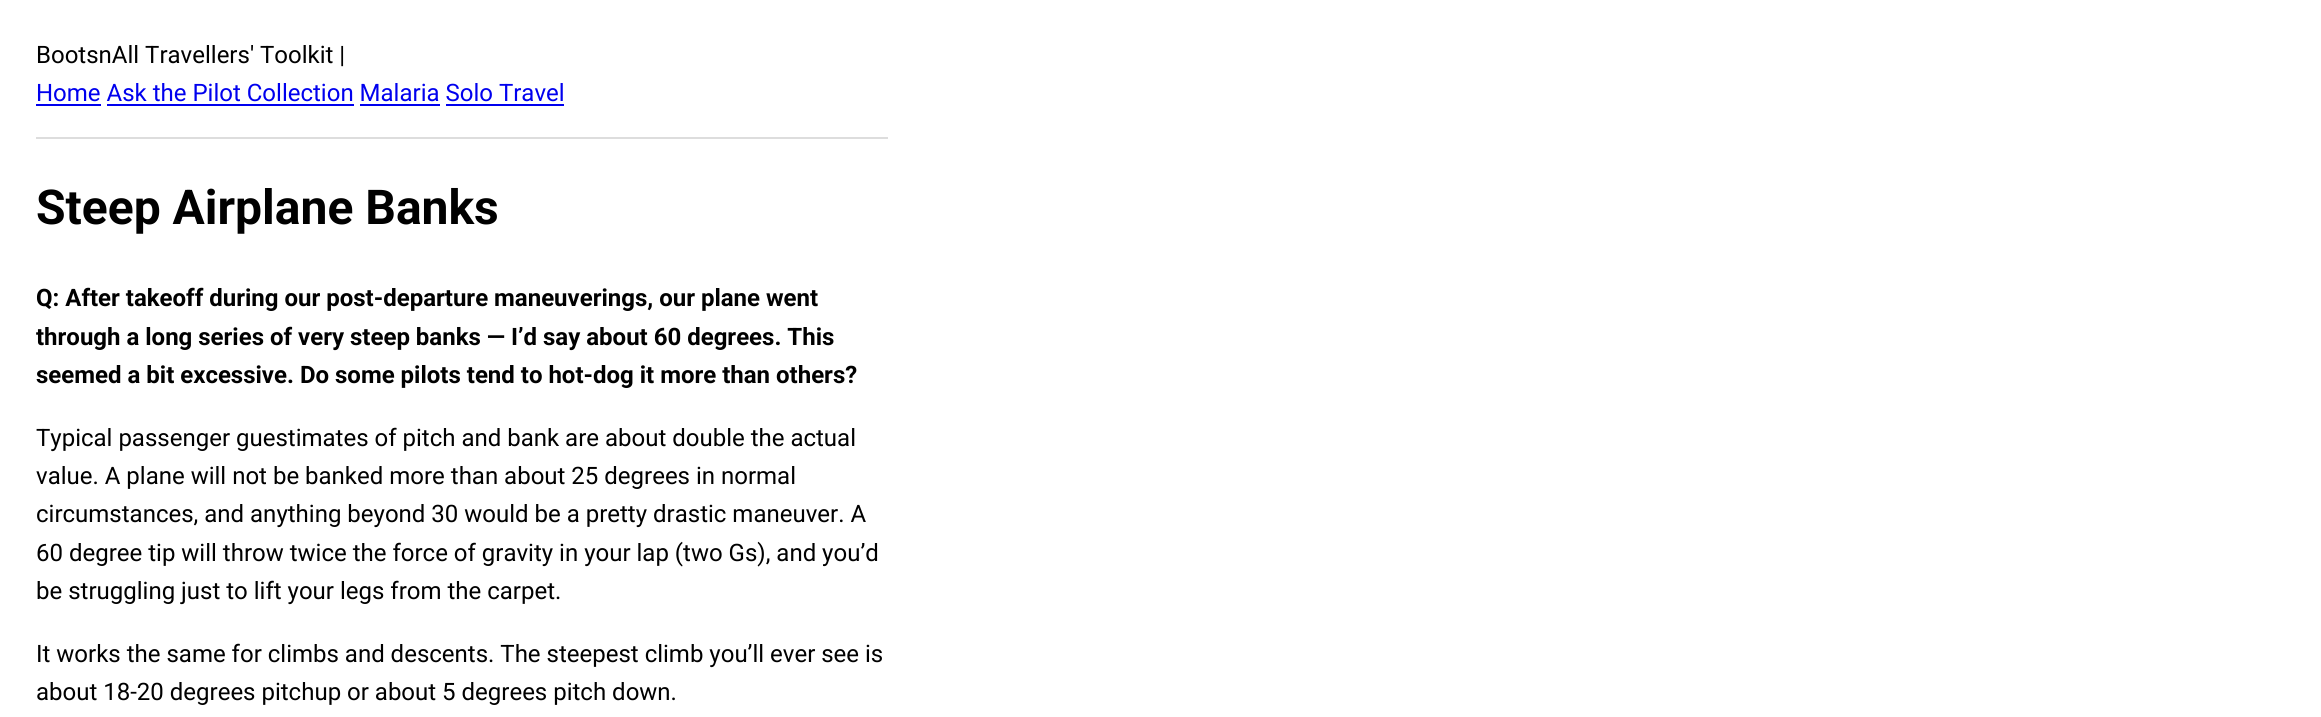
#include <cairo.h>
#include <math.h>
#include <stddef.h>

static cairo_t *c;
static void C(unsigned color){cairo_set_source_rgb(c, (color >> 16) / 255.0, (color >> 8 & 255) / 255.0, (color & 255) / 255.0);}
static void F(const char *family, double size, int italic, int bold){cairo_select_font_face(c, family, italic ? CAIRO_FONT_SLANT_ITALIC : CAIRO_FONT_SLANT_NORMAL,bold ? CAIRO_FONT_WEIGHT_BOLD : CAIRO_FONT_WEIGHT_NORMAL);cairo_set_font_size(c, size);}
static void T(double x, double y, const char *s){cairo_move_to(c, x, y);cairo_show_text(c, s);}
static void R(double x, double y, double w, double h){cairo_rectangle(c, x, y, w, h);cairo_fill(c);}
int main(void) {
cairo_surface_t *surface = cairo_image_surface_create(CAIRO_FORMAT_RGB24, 2321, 717);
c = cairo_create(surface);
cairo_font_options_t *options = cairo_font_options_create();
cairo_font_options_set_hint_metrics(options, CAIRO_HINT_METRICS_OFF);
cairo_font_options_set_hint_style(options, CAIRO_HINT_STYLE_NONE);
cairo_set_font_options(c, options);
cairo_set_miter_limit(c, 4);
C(0xffffff);
cairo_paint(c);
F("Roboto",24,0,0);
C(0x000000);
T(36,63,"BootsnAll Travellers' Toolkit |");
C(0x0000ee);
T(36,101,"Home Ask the Pilot Collection Malaria Solo Travel");
R(36,104,65,2);
R(107,104,247,2);
R(360,104,80,2);
R(446,104,118,2);
C(0xdddddd);
R(36,137,852,2);
F("Roboto",48,0,1);
C(0x000000);
T(36,224,"Steep Airplane Banks");
F("Roboto",24,0,1);
T(36,306,"Q: After takeoff during our post-departure maneuverings, our plane went");
T(36,345,"through a long series of very steep banks — I’d say about 60 degrees. This");
T(36,383,"seemed a bit excessive. Do some pilots tend to hot-dog it more than others?");
F("Roboto",24,0,0);
T(36,446,"Typical passenger guestimates of pitch and bank are about double the actual");
T(36,484,"value. A plane will not be banked more than about 25 degrees in normal");
T(36,522,"circumstances, and anything beyond 30 would be a pretty drastic maneuver. A");
T(36,561,"60 degree tip will throw twice the force of gravity in your lap (two Gs), and you’d");
T(36,599,"be struggling just to lift your legs from the carpet.");
T(36,662,"It works the same for climbs and descents. The steepest climb you’ll ever see is");
T(36,700,"about 18-20 degrees pitchup or about 5 degrees pitch down.");
cairo_surface_write_to_png(surface, "o.png");
cairo_font_options_destroy(options);
cairo_destroy(c);
cairo_surface_destroy(surface);
return 0;
}
